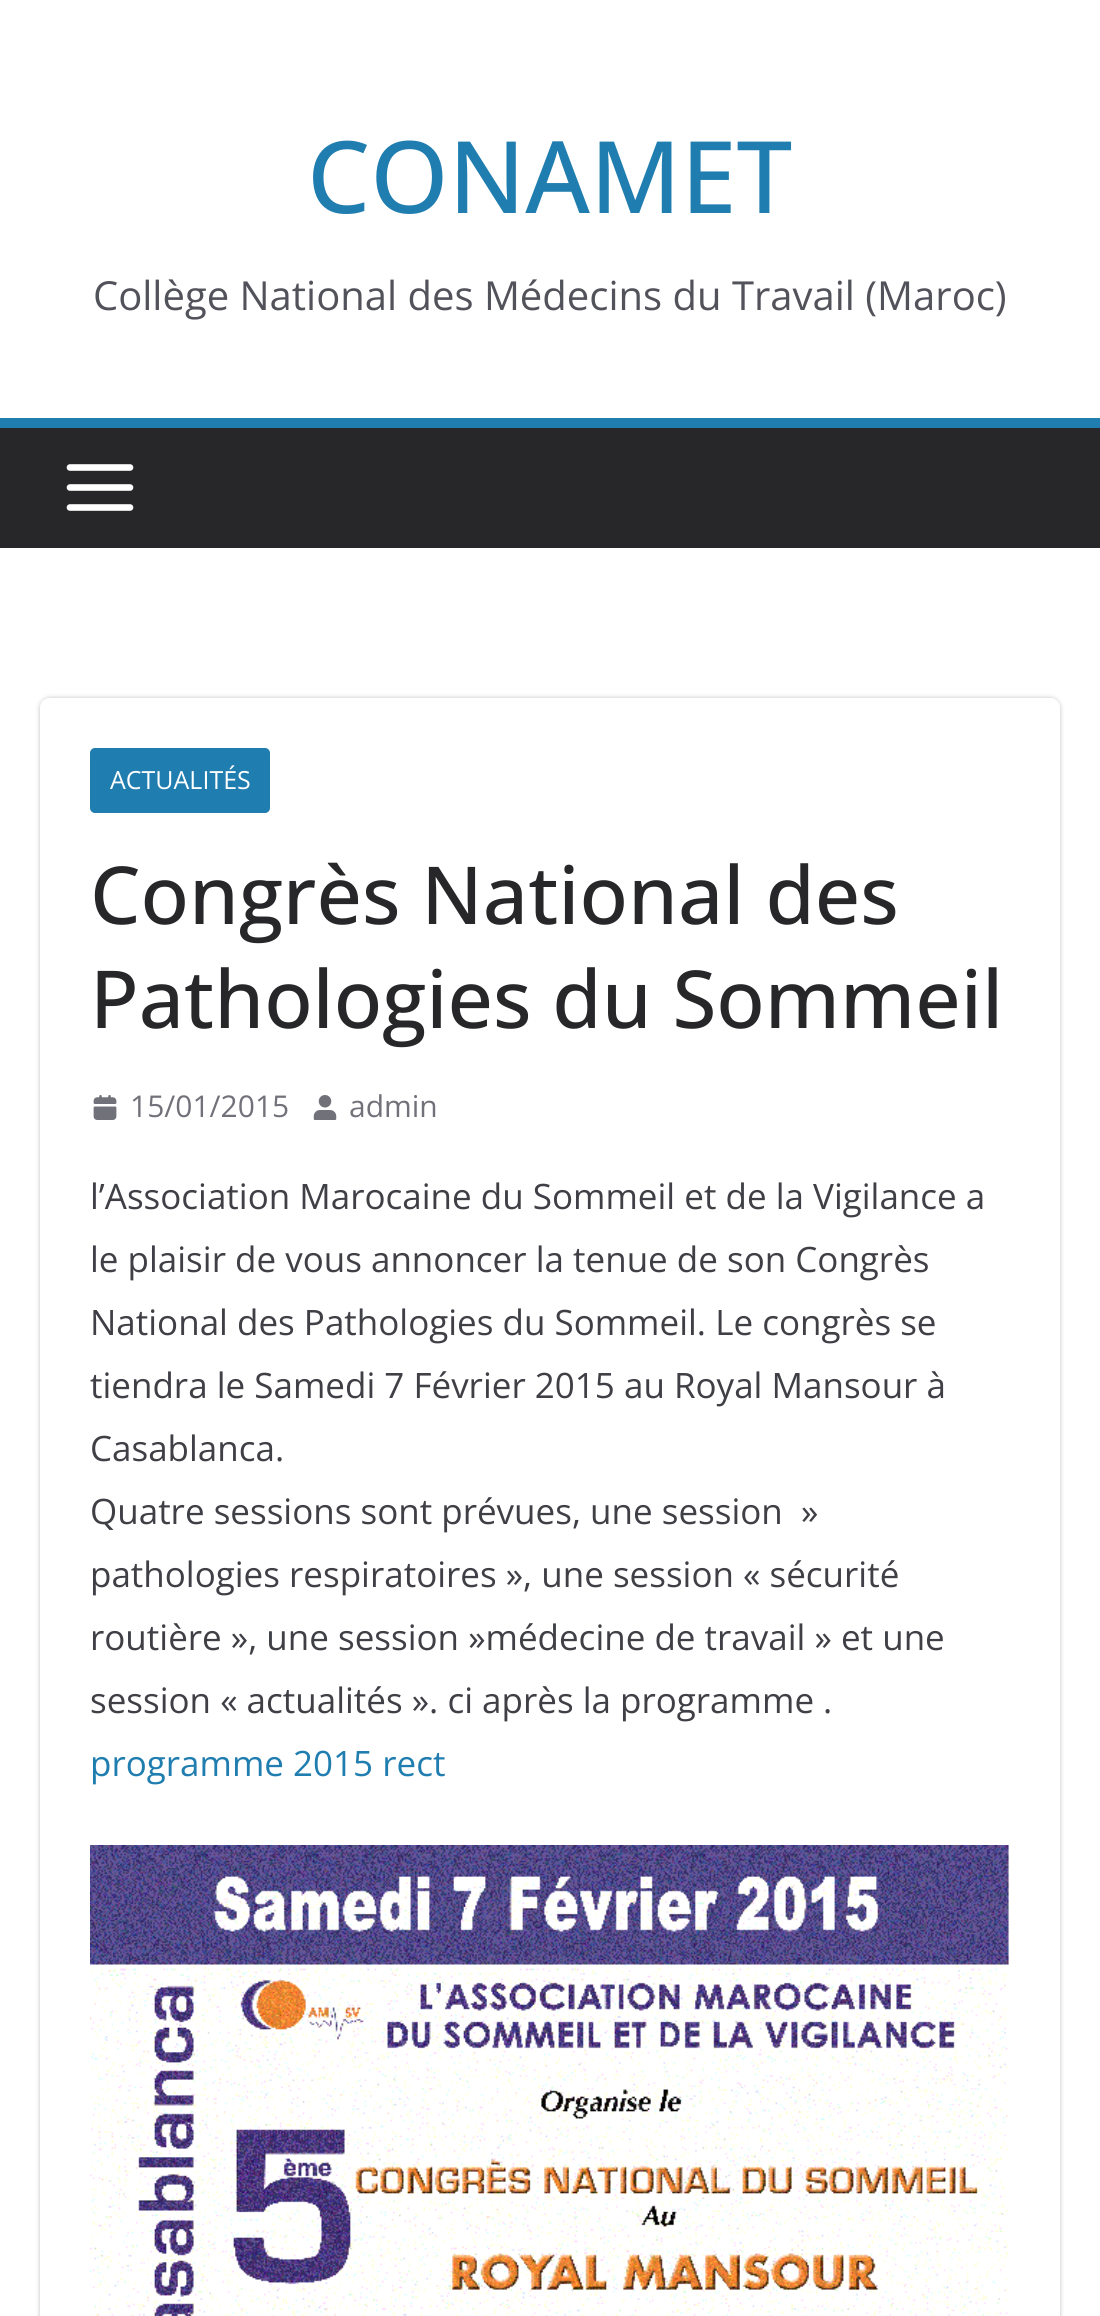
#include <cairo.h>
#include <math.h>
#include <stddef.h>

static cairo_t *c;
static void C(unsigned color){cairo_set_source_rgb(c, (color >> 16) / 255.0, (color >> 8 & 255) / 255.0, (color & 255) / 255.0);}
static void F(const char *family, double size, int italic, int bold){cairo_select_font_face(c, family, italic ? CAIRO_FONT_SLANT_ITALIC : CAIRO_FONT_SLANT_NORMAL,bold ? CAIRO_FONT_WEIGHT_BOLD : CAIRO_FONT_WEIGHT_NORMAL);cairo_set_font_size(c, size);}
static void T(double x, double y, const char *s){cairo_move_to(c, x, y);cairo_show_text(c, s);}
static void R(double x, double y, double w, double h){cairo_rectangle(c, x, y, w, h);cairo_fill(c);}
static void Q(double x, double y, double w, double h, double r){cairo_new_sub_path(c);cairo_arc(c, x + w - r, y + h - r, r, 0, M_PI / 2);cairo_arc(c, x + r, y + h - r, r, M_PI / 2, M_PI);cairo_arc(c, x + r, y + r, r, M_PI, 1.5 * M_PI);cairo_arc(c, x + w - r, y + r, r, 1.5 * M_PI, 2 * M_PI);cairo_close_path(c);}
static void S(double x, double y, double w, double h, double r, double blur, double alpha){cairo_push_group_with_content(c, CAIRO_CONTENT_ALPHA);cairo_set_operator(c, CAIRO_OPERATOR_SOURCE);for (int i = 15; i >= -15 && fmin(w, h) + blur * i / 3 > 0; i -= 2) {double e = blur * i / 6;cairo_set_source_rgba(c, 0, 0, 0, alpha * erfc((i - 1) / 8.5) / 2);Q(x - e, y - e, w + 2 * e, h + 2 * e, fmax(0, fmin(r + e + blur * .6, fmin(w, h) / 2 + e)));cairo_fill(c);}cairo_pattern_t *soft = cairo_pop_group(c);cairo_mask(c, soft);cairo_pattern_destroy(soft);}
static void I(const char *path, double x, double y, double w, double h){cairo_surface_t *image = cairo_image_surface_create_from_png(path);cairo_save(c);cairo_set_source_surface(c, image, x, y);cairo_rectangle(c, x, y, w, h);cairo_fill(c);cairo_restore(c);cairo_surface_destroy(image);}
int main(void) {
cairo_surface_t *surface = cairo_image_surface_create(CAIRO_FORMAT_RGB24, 1100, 2316);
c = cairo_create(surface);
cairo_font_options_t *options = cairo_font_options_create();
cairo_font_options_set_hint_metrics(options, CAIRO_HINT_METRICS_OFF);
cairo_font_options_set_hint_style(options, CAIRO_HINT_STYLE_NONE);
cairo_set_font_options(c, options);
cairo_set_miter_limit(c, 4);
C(0xffffff);
cairo_paint(c);
F("Open Sans Medium",100,0,0);
C(0x207daf);
T(307,213,"CONAMET");
F("Open Sans",40,0,0);
C(0x52525b);
T(93,310,"Collège National des Médecins du Travail (Maroc)");
C(0x27272a);
R(0,428,1100,120);
C(0x207daf);
R(0,418,1100,10);
I("1.png",66,464,68,47);
cairo_save(c);
cairo_set_fill_rule(c,CAIRO_FILL_RULE_EVEN_ODD);
cairo_new_path(c);
cairo_move_to(c,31,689);
cairo_line_to(c,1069,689);
cairo_line_to(c,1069,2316);
cairo_line_to(c,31,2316);
cairo_close_path(c);
cairo_move_to(c,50,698);
cairo_line_to(c,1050,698);
cairo_curve_to(c,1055.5,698,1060,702.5,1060,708);
cairo_line_to(c,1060,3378);
cairo_curve_to(c,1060,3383.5,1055.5,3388,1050,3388);
cairo_line_to(c,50,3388);
cairo_curve_to(c,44.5,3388,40,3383.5,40,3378);
cairo_line_to(c,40,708);
cairo_curve_to(c,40,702.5,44.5,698,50,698);
cairo_close_path(c);
cairo_clip(c);
C(0x000000);
S(40,698,1020,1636,10,2.5,.24);
cairo_restore(c);
Q(90,748,180,65,5);
cairo_fill(c);
F("Open Sans",25,0,0);
C(0xffffff);
T(110,789,"ACTUALITÉS");
F("Open Sans Medium",80,0,0);
C(0x27272a);
T(90,924,"Congrès National des");
T(90,1028,"Pathologies du Sommeil");
I("2.png",93,1095,24,25);
F("Open Sans",30,0,0);
C(0x71717a);
T(130,1117,"15/01/2015");
I("3.png",313,1095,24,25);
T(349,1117,"admin");
F("Open Sans",35,0,0);
C(0x3f3f46);
T(90,1209,"l’Association Marocaine du Sommeil et de la Vigilance a");
T(90,1272,"le plaisir de vous annoncer la tenue de son Congrès");
T(90,1335,"National des Pathologies du Sommeil. Le congrès se");
T(90,1398,"tiendra le Samedi 7 Février 2015 au Royal Mansour à");
T(90,1461,"Casablanca.");
T(90,1524,"Quatre sessions sont prévues, une session  »");
T(90,1587,"pathologies respiratoires », une session « sécurité");
T(90,1650,"routière », une session »médecine de travail » et une");
T(90,1713,"session « actualités ». ci après la programme .");
C(0x207daf);
T(90,1776,"programme 2015 rect");
I("4.png",90,1845,919,471);
cairo_surface_write_to_png(surface, "o.png");
cairo_font_options_destroy(options);
cairo_destroy(c);
cairo_surface_destroy(surface);
return 0;
}
